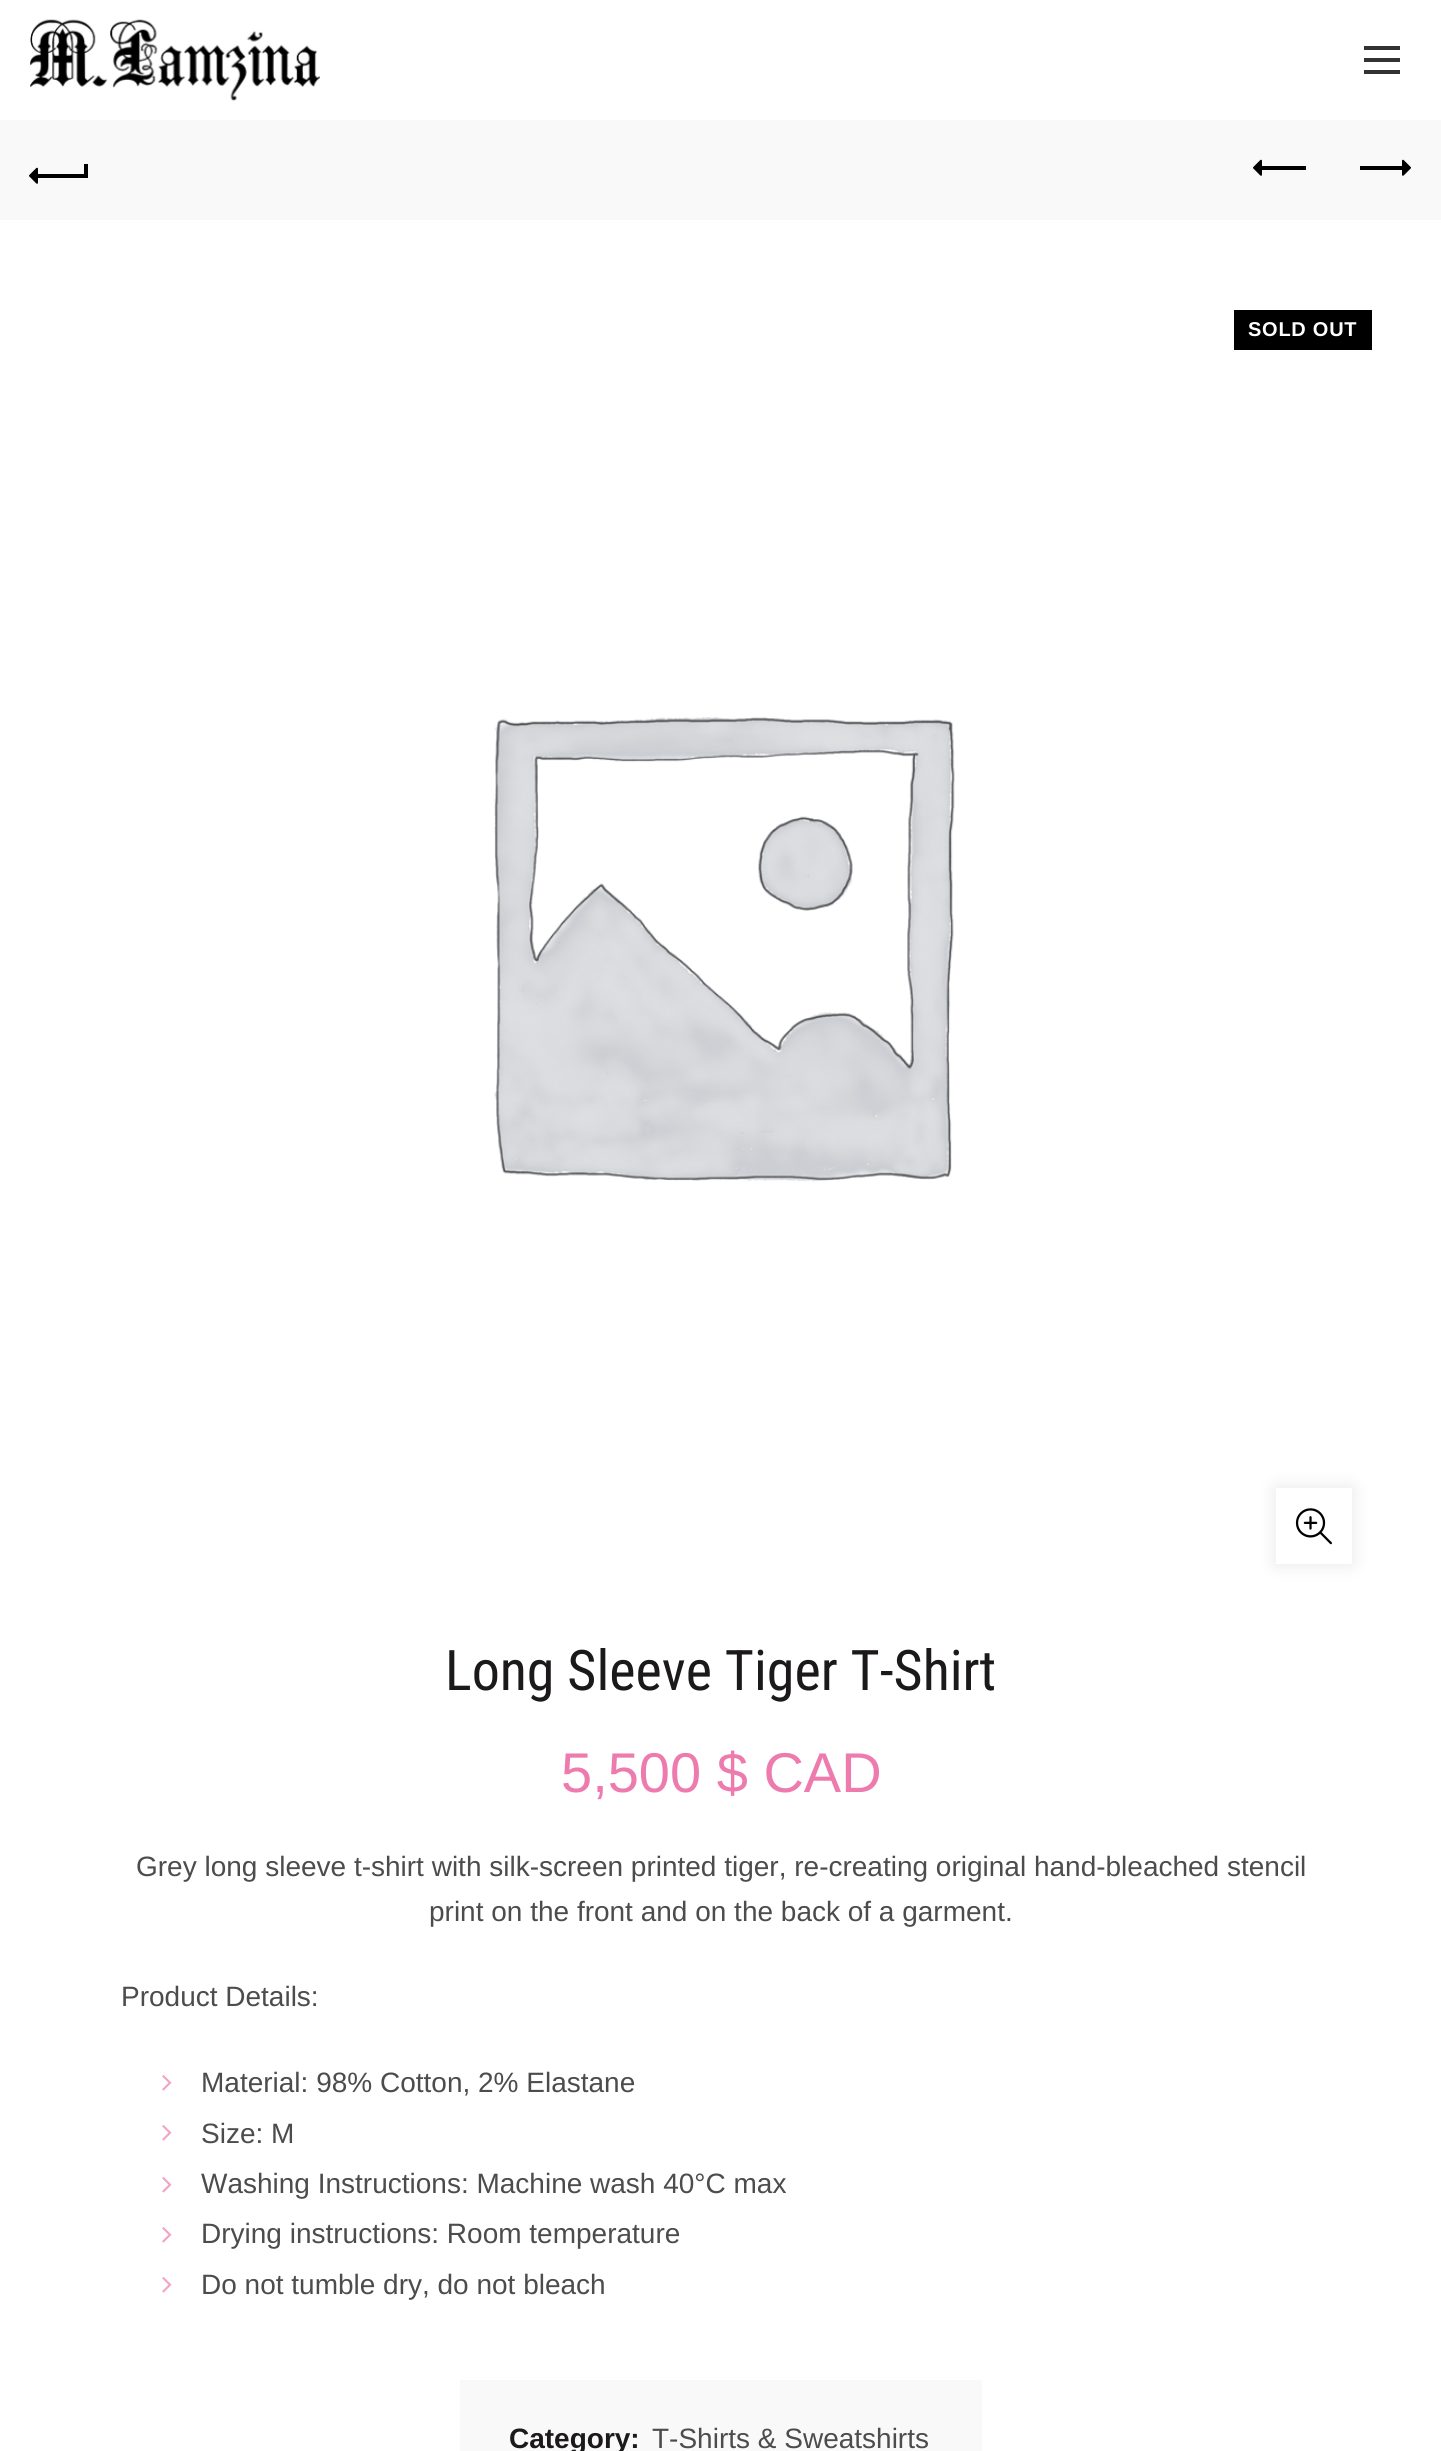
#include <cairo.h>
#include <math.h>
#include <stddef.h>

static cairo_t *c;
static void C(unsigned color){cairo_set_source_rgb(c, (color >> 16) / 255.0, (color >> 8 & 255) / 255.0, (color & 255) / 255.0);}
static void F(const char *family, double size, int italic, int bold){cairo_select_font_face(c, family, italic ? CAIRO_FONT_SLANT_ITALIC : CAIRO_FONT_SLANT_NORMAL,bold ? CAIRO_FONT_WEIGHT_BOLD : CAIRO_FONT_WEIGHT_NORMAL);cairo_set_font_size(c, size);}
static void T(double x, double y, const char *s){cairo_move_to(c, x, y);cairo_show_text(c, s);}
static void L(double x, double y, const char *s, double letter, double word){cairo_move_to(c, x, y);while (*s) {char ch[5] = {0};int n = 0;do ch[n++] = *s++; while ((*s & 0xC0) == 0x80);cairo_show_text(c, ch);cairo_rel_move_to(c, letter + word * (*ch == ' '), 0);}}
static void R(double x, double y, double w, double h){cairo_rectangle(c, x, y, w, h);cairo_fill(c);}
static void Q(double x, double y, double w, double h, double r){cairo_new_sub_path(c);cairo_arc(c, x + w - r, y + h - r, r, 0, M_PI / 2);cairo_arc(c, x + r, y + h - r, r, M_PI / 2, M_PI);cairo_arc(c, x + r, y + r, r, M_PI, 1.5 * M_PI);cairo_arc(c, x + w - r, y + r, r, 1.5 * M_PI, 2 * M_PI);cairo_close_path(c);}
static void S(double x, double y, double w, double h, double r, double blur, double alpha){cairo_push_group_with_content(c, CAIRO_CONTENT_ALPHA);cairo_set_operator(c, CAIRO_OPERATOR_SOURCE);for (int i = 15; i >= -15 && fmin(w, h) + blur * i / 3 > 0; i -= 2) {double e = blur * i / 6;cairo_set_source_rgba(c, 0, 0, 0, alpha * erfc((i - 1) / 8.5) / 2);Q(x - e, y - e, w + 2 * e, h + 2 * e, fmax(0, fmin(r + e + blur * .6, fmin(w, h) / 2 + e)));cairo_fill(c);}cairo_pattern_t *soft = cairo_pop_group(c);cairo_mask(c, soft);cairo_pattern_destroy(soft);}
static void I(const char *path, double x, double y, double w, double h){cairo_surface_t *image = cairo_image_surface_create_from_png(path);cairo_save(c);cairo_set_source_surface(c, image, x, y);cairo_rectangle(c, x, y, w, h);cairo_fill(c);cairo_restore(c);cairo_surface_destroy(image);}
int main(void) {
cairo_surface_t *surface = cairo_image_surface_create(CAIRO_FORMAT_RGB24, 1441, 2451);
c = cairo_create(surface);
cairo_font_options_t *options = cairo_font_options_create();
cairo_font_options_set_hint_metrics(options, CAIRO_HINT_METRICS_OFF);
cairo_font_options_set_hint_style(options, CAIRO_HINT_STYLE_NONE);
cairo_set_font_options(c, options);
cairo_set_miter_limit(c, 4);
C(0xffffff);
cairo_paint(c);
I("1.png",30,19,290,82);
C(0x333333);
R(1364,58,36,4);
R(1364,46,36,4);
R(1364,70,36,4);
C(0xf9f9f9);
R(0,120,1441,100);
C(0x000000);
R(36,174,50,4);
I("2.png",29,167,9,17);
R(84,164,4,14);
R(1260,166,46,4);
I("2.png",1253,159,9,17);
R(1360,166,46,4);
I("3.png",1402,159,9,17);
R(1234,310,138,40);
F("Liberation Sans",20,0,1);
C(0xffffff);
L(1248,336,"SOLD OUT",.75,0);
I("4.png",494,717,461,465);
cairo_save(c);
cairo_set_fill_rule(c,CAIRO_FILL_RULE_EVEN_ODD);
cairo_new_path(c);
cairo_move_to(c,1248,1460);
cairo_line_to(c,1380,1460);
cairo_line_to(c,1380,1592);
cairo_line_to(c,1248,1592);
cairo_close_path(c);
cairo_move_to(c,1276,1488);
cairo_line_to(c,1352,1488);
cairo_line_to(c,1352,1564);
cairo_line_to(c,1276,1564);
cairo_close_path(c);
cairo_clip(c);
C(0x000000);
S(1276,1488,76,76,0,9,.1);
cairo_restore(c);
I("5.png",1295,1508,37,37);
F("Roboto Condensed",56,0,0);
C(0x1b1919);
T(445,1690,"Long Sleeve Tiger T-Shirt");
F("Liberation Sans",56,0,0);
C(0xed7bae);
T(561,1792,"5,500 $ CAD");
F("Liberation Sans",28,0,0);
C(0x4c4c4c);
T(136,1876,"Grey long sleeve t-shirt with silk-screen printed tiger, re-creating original hand-bleached stencil");
T(429,1921,"print on the front and on the back of a garment.");
T(121,2006,"Product Details:");
I("6.png",162,2075,10,16);
T(201,2092,"Material: 98% Cotton, 2% Elastane");
I("6.png",162,2125,10,16);
T(201,2143,"Size: M");
I("6.png",162,2177,10,16);
T(201,2193,"Washing Instructions: Machine wash 40°C max");
I("6.png",162,2227,10,16);
T(201,2243,"Drying instructions: Room temperature");
I("6.png",162,2277,10,16);
T(201,2294,"Do not tumble dry, do not bleach");
C(0xf9f9f9);
R(460,2380,522,71);
F("Liberation Sans",28,0,1);
C(0x1b1919);
T(509,2448,"Category:");
F("Liberation Sans",28,0,0);
C(0x4c4c4c);
T(652,2448,"T-Shirts & Sweatshirts");
cairo_surface_write_to_png(surface, "o.png");
cairo_font_options_destroy(options);
cairo_destroy(c);
cairo_surface_destroy(surface);
return 0;
}
